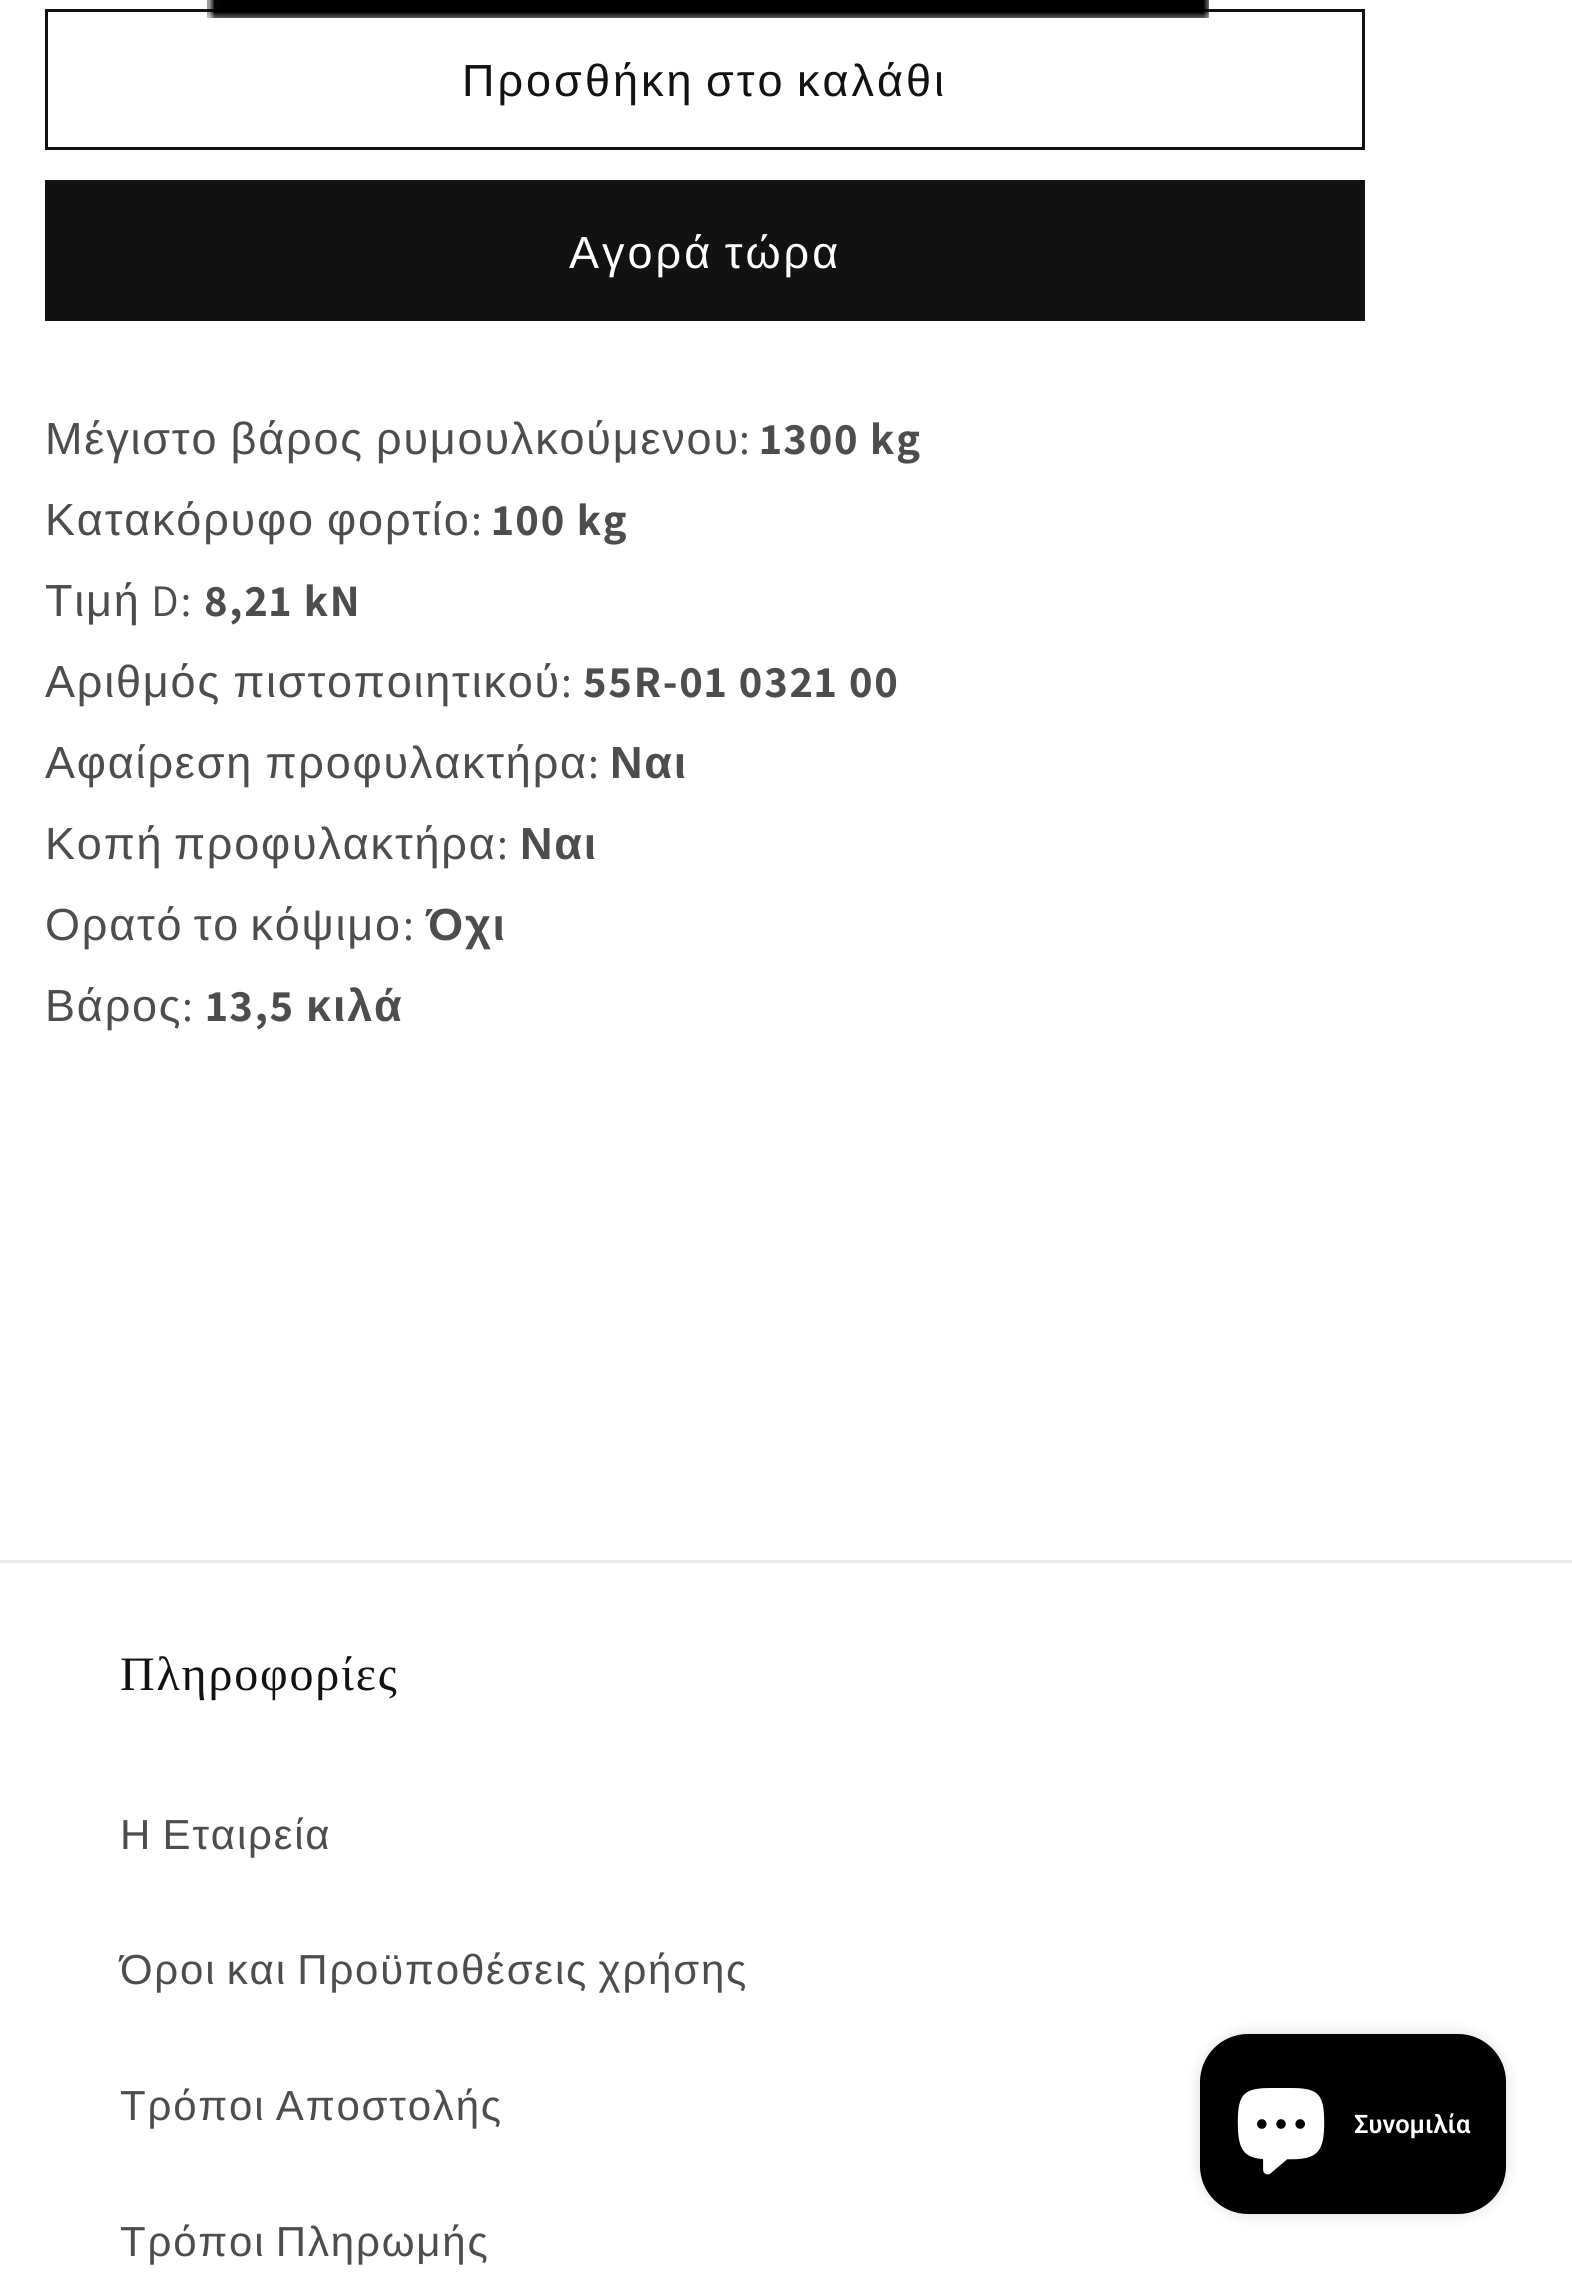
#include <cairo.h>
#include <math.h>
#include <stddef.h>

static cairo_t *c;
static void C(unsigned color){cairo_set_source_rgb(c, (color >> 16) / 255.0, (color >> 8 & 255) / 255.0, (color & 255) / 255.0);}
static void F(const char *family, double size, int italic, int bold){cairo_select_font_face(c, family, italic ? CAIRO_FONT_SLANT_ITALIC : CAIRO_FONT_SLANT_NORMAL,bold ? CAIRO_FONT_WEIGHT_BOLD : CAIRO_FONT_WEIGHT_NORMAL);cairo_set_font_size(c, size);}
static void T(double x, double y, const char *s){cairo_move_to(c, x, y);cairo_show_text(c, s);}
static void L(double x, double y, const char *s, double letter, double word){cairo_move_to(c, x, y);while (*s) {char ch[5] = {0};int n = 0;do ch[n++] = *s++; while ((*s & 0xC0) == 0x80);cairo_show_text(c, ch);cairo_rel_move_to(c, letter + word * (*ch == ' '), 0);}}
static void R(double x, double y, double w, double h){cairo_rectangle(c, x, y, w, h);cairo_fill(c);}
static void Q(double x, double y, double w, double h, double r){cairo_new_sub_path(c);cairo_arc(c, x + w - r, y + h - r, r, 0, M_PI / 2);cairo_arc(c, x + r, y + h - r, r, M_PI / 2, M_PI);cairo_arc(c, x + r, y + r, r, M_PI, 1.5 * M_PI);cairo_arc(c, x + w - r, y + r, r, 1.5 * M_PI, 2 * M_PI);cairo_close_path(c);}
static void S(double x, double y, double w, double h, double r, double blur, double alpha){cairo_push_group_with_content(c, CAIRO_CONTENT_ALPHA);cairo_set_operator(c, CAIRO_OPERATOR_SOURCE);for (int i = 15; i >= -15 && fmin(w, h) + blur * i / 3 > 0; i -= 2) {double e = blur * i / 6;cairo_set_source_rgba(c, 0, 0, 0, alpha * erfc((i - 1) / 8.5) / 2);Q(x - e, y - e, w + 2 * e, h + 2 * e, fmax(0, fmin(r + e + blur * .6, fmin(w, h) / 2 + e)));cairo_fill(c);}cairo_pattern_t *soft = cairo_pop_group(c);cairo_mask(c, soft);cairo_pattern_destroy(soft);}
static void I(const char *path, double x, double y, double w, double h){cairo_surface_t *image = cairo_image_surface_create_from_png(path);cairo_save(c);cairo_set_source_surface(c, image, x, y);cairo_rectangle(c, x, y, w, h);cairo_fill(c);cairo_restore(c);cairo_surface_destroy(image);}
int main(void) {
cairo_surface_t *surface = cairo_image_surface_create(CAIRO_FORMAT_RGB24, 1572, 2275);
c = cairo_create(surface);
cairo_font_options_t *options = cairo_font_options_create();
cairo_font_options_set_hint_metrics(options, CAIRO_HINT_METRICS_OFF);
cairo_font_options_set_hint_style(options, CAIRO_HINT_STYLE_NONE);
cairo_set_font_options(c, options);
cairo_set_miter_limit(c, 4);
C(0xffffff);
cairo_paint(c);
cairo_rectangle(c,46.5,10.5,1317,138);
C(0x121212);
cairo_set_line_width(c,3);
cairo_stroke(c);
I("1.png",207,0,1002,18);
F("Liberation Sans",45,0,0);
L(462,96,"Προσθήκη στο καλάθι",3,-4);
R(45,180,1320,141);
C(0xffffff);
L(569,268,"Αγορά τώρα",3,-4);
C(0x4d4d4d);
L(45,454,"Μέγιστο βάρος ρυμουλκούμενου",1.8,-2);
F("Assistant",45,0,0);
L(739,454,":",1.8,0);
F("Assistant",45,0,1);
L(760,454,"1300 kg",1.8,0);
F("Liberation Sans",45,0,0);
L(45,535,"Κατακόρυφο φορτίο",1.8,-2);
F("Assistant",45,0,0);
L(471,535,":",1.8,0);
F("Assistant",45,0,1);
L(492,535,"100 kg",1.8,0);
F("Liberation Sans",45,0,0);
L(45,616,"Τιμή",1.8,0);
F("Assistant",45,0,0);
L(151,616,"D:",1.8,0);
F("Assistant",45,0,1);
L(204,616,"8,21 kN",1.8,0);
F("Liberation Sans",45,0,0);
L(45,697,"Αριθμός πιστοποιητικού",1.8,-2);
F("Assistant",45,0,0);
L(561,697,":",1.8,0);
F("Assistant",45,0,1);
L(583,697,"55R-01 0321 00",1.8,0);
F("Liberation Sans",45,0,0);
L(45,778,"Αφαίρεση προφυλακτήρα",1.8,-2);
F("Assistant",45,0,0);
L(588,778,":",1.8,0);
F("Liberation Sans",45,0,1);
L(610,778,"Ναι",1.8,0);
F("Liberation Sans",45,0,0);
L(45,859,"Κοπή",1.8,0);
L(174,859,"προφυλακτήρα",1.8,0);
F("Assistant",45,0,0);
L(497,859,":",1.8,0);
F("Liberation Sans",45,0,1);
L(520,859,"Ναι",1.8,0);
F("Liberation Sans",45,0,0);
L(45,940,"Ορατό το κόψιμο",1.8,-4);
F("Assistant",45,0,0);
L(403,940,":",1.8,0);
F("Liberation Sans",45,0,1);
L(426,940,"Όχι",1.8,0);
F("Liberation Sans",45,0,0);
L(45,1021,"Βάρος",1.8,0);
F("Assistant",45,0,0);
L(182,1021,":",1.8,0);
F("Assistant",45,0,1);
L(206,1021,"13,5",1.8,0);
F("Liberation Sans",45,0,1);
L(306,1021,"κιλά",1.8,0);
C(0xececec);
R(0,1560,1572,3);
F("Liberation Serif",48,0,0);
C(0x121212);
L(120,1690,"Πληροφορίες",1.8,0);
F("Liberation Sans",42,0,0);
C(0x4d4d4d);
L(120,1849,"Η Εταιρεία",1.8,-3);
L(120,1984,"Όροι και Προϋποθέσεις χρήσης",1.8,-3);
L(120,2120,"Τρόποι Αποστολής",1.8,-3);
L(120,2256,"Τρόποι Πληρωμής",1.8,-3);
C(0x000000);
S(1200,2034,306,180,48,7.5,.15);
C(0x000000);
Q(1200,2034,306,180,48);
cairo_fill(c);
I("2.png",1237,2088,88,87);
F("Roboto SemiBold",25.5,0,0);
C(0xffffff);
T(1354,2133,"Συνομιλία");
cairo_surface_write_to_png(surface, "o.png");
cairo_font_options_destroy(options);
cairo_destroy(c);
cairo_surface_destroy(surface);
return 0;
}
